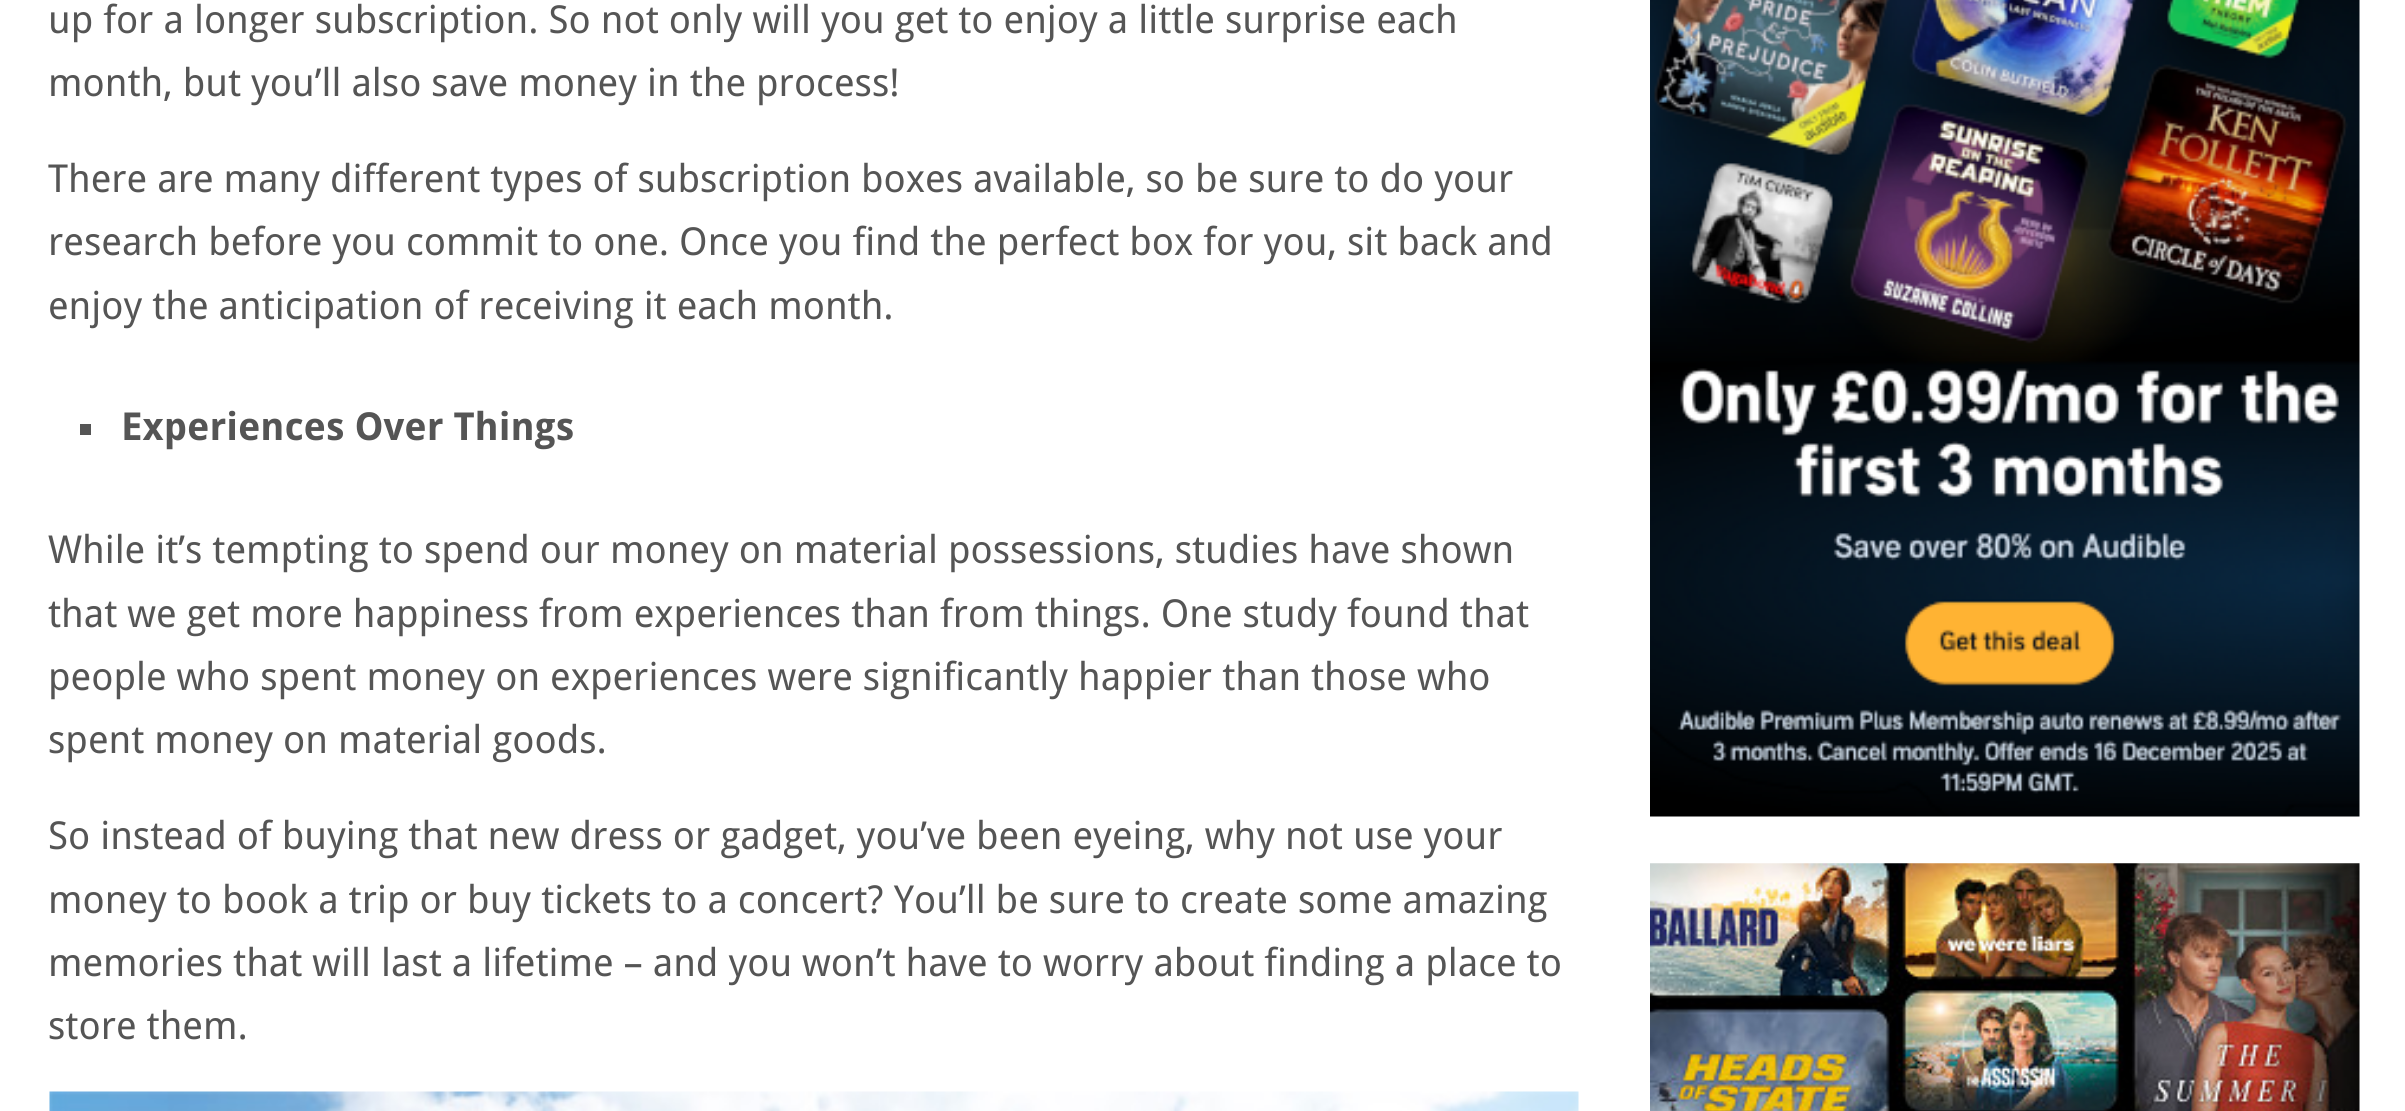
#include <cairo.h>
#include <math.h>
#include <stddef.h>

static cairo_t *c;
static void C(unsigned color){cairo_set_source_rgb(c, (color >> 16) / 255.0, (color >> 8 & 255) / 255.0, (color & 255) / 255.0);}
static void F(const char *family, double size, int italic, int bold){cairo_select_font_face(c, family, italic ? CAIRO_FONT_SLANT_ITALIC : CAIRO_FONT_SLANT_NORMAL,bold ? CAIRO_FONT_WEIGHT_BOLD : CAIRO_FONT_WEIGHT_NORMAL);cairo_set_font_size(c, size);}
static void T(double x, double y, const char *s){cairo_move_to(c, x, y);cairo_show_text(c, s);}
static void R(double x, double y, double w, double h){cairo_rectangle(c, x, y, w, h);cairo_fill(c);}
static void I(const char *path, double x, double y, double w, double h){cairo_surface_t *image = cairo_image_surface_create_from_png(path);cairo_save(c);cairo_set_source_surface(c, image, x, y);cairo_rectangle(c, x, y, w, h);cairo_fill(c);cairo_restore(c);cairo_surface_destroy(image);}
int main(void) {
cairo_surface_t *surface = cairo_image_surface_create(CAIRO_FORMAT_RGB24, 2405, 1111);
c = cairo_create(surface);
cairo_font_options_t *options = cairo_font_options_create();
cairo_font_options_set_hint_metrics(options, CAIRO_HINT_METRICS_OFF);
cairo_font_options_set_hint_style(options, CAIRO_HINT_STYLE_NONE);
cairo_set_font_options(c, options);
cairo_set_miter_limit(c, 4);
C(0xffffff);
cairo_paint(c);
F("Droid Sans",38.5,0,0);
C(0x555555);
T(48,33,"up for a longer subscription. So not only will you get to enjoy a little surprise each");
T(48,96,"month, but you’ll also save money in the process!");
T(48,192,"There are many different types of subscription boxes available, so be sure to do your");
T(48,255,"research before you commit to one. Once you find the perfect box for you, sit back and");
T(48,319,"enjoy the anticipation of receiving it each month.");
R(80,424,11,11);
F("Droid Sans",38.5,0,1);
T(121,440,"Experiences Over Things");
F("Droid Sans",38.5,0,0);
T(48,563,"While it’s tempting to spend our money on material possessions, studies have shown");
T(48,627,"that we get more happiness from experiences than from things. One study found that");
T(48,690,"people who spent money on experiences were significantly happier than those who");
T(48,753,"spent money on material goods.");
T(48,849,"So instead of buying that new dress or gadget, you’ve been eyeing, why not use your");
T(48,913,"money to book a trip or buy tickets to a concert? You’ll be sure to create some amazing");
T(48,976,"memories that will last a lifetime – and you won’t have to worry about finding a place to");
T(48,1039,"store them.");
I("1.png",49,1091,1530,20);
I("2.png",1650,0,710,817);
I("3.png",1650,863,710,248);
cairo_surface_write_to_png(surface, "o.png");
cairo_font_options_destroy(options);
cairo_destroy(c);
cairo_surface_destroy(surface);
return 0;
}
